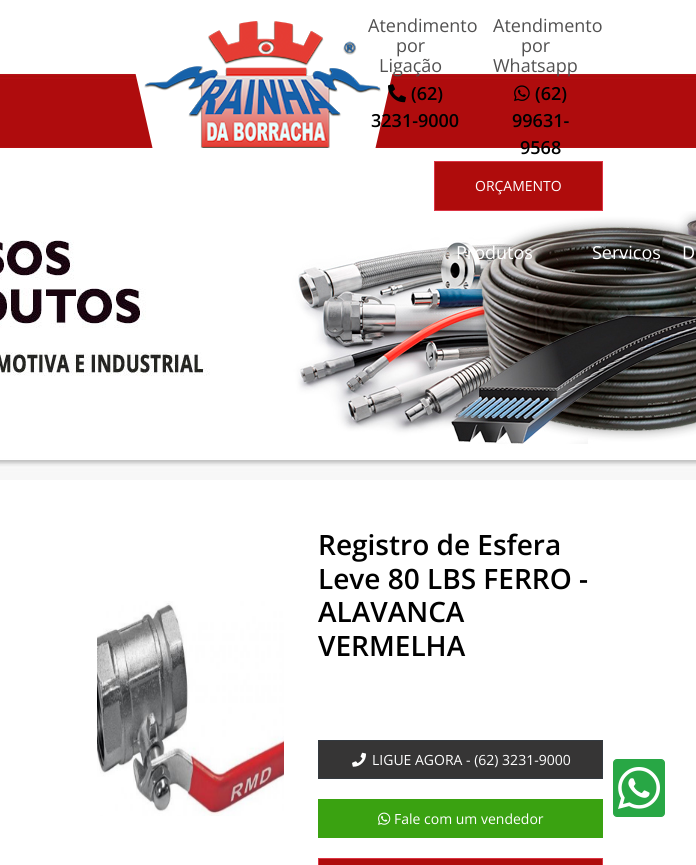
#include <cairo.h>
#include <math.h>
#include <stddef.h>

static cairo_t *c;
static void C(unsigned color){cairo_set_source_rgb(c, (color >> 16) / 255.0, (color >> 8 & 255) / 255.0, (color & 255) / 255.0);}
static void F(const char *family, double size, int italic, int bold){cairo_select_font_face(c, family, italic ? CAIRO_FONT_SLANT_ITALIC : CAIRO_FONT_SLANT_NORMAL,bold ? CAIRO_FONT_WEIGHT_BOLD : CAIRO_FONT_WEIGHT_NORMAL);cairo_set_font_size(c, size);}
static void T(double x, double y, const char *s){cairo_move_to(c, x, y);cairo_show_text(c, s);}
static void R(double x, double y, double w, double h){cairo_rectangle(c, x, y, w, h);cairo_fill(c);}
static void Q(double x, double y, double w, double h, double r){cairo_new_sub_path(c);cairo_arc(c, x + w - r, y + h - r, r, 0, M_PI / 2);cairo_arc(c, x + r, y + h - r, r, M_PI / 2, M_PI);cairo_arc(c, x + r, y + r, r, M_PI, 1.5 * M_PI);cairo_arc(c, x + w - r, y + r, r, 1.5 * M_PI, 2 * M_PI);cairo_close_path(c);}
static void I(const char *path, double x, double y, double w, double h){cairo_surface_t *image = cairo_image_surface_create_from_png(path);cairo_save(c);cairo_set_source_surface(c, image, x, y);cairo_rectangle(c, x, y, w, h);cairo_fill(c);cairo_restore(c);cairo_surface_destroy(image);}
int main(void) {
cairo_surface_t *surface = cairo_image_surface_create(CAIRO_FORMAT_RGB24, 696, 865);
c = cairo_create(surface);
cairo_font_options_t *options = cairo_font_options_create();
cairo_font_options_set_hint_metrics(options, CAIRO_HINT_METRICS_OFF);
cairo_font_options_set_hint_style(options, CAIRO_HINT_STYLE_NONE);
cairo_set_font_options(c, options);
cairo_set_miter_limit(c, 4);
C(0xffffff);
cairo_paint(c);
I("1.png",0,211,696,269);
I("2.png",0,73,696,75);
I("3.png",135,21,258,127);
F("Open Sans",18,0,0);
C(0x515050);
T(368,32,"Atendimento");
T(396,52,"por");
T(379,72,"Ligação");
I("4.png",388,84,18,19);
F("Open Sans SemiBold",18,0,0);
C(0x000000);
T(411,100,"(62)");
T(371,127,"3231-9000");
F("Open Sans",18,0,0);
C(0x515050);
T(493,32,"Atendimento");
T(521,52,"por");
T(493,72,"Whatsapp");
I("5.png",514,85,16,17);
F("Open Sans SemiBold",18,0,0);
C(0x000000);
T(535,100,"(62)");
T(512,127,"99631-");
T(520,154,"9568");
C(0xaf0c0c);
cairo_rectangle(c,434.5,161.5,168,49);
cairo_fill_preserve(c);
C(0xdc3545);
cairo_set_line_width(c,1);
cairo_stroke(c);
F("Open Sans",14,0,0);
C(0xffffff);
T(475,191,"ORÇAMENTO");
F("Open Sans",18,0,0);
T(456,259,"Produtos");
T(592,259,"Servicos");
T(682,259,"D");
I("6.png",97,601,187,215);
F("Open Sans SemiBold",28,0,0);
C(0x000000);
T(318,555,"Registro de Esfera");
T(318,589,"Leve 80 LBS FERRO -");
T(318,622,"ALAVANCA");
T(318,656,"VERMELHA");
C(0x363535);
cairo_rectangle(c,318.5,740.5,284,38);
cairo_fill_preserve(c);
C(0x343a40);
cairo_stroke(c);
I("7.png",352,752,14,15);
F("Open Sans",14,0,0);
C(0xffffff);
T(372,765,"LIGUE AGORA - (62) 3231-9000");
C(0x3aa211);
R(318,799,285,39);
I("8.png",378,812,13,13);
C(0xffffff);
T(394,824,"Fale com um vendedor");
C(0xaf0c0c);
cairo_rectangle(c,318.5,858.5,284,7);
cairo_fill_preserve(c);
C(0xdc3545);
cairo_stroke(c);
C(0x28a745);
Q(613.5,759.5,51,57,3.5);
cairo_fill_preserve(c);
cairo_stroke(c);
I("9.png",618,767,42,42);
cairo_surface_write_to_png(surface, "o.png");
cairo_font_options_destroy(options);
cairo_destroy(c);
cairo_surface_destroy(surface);
return 0;
}
